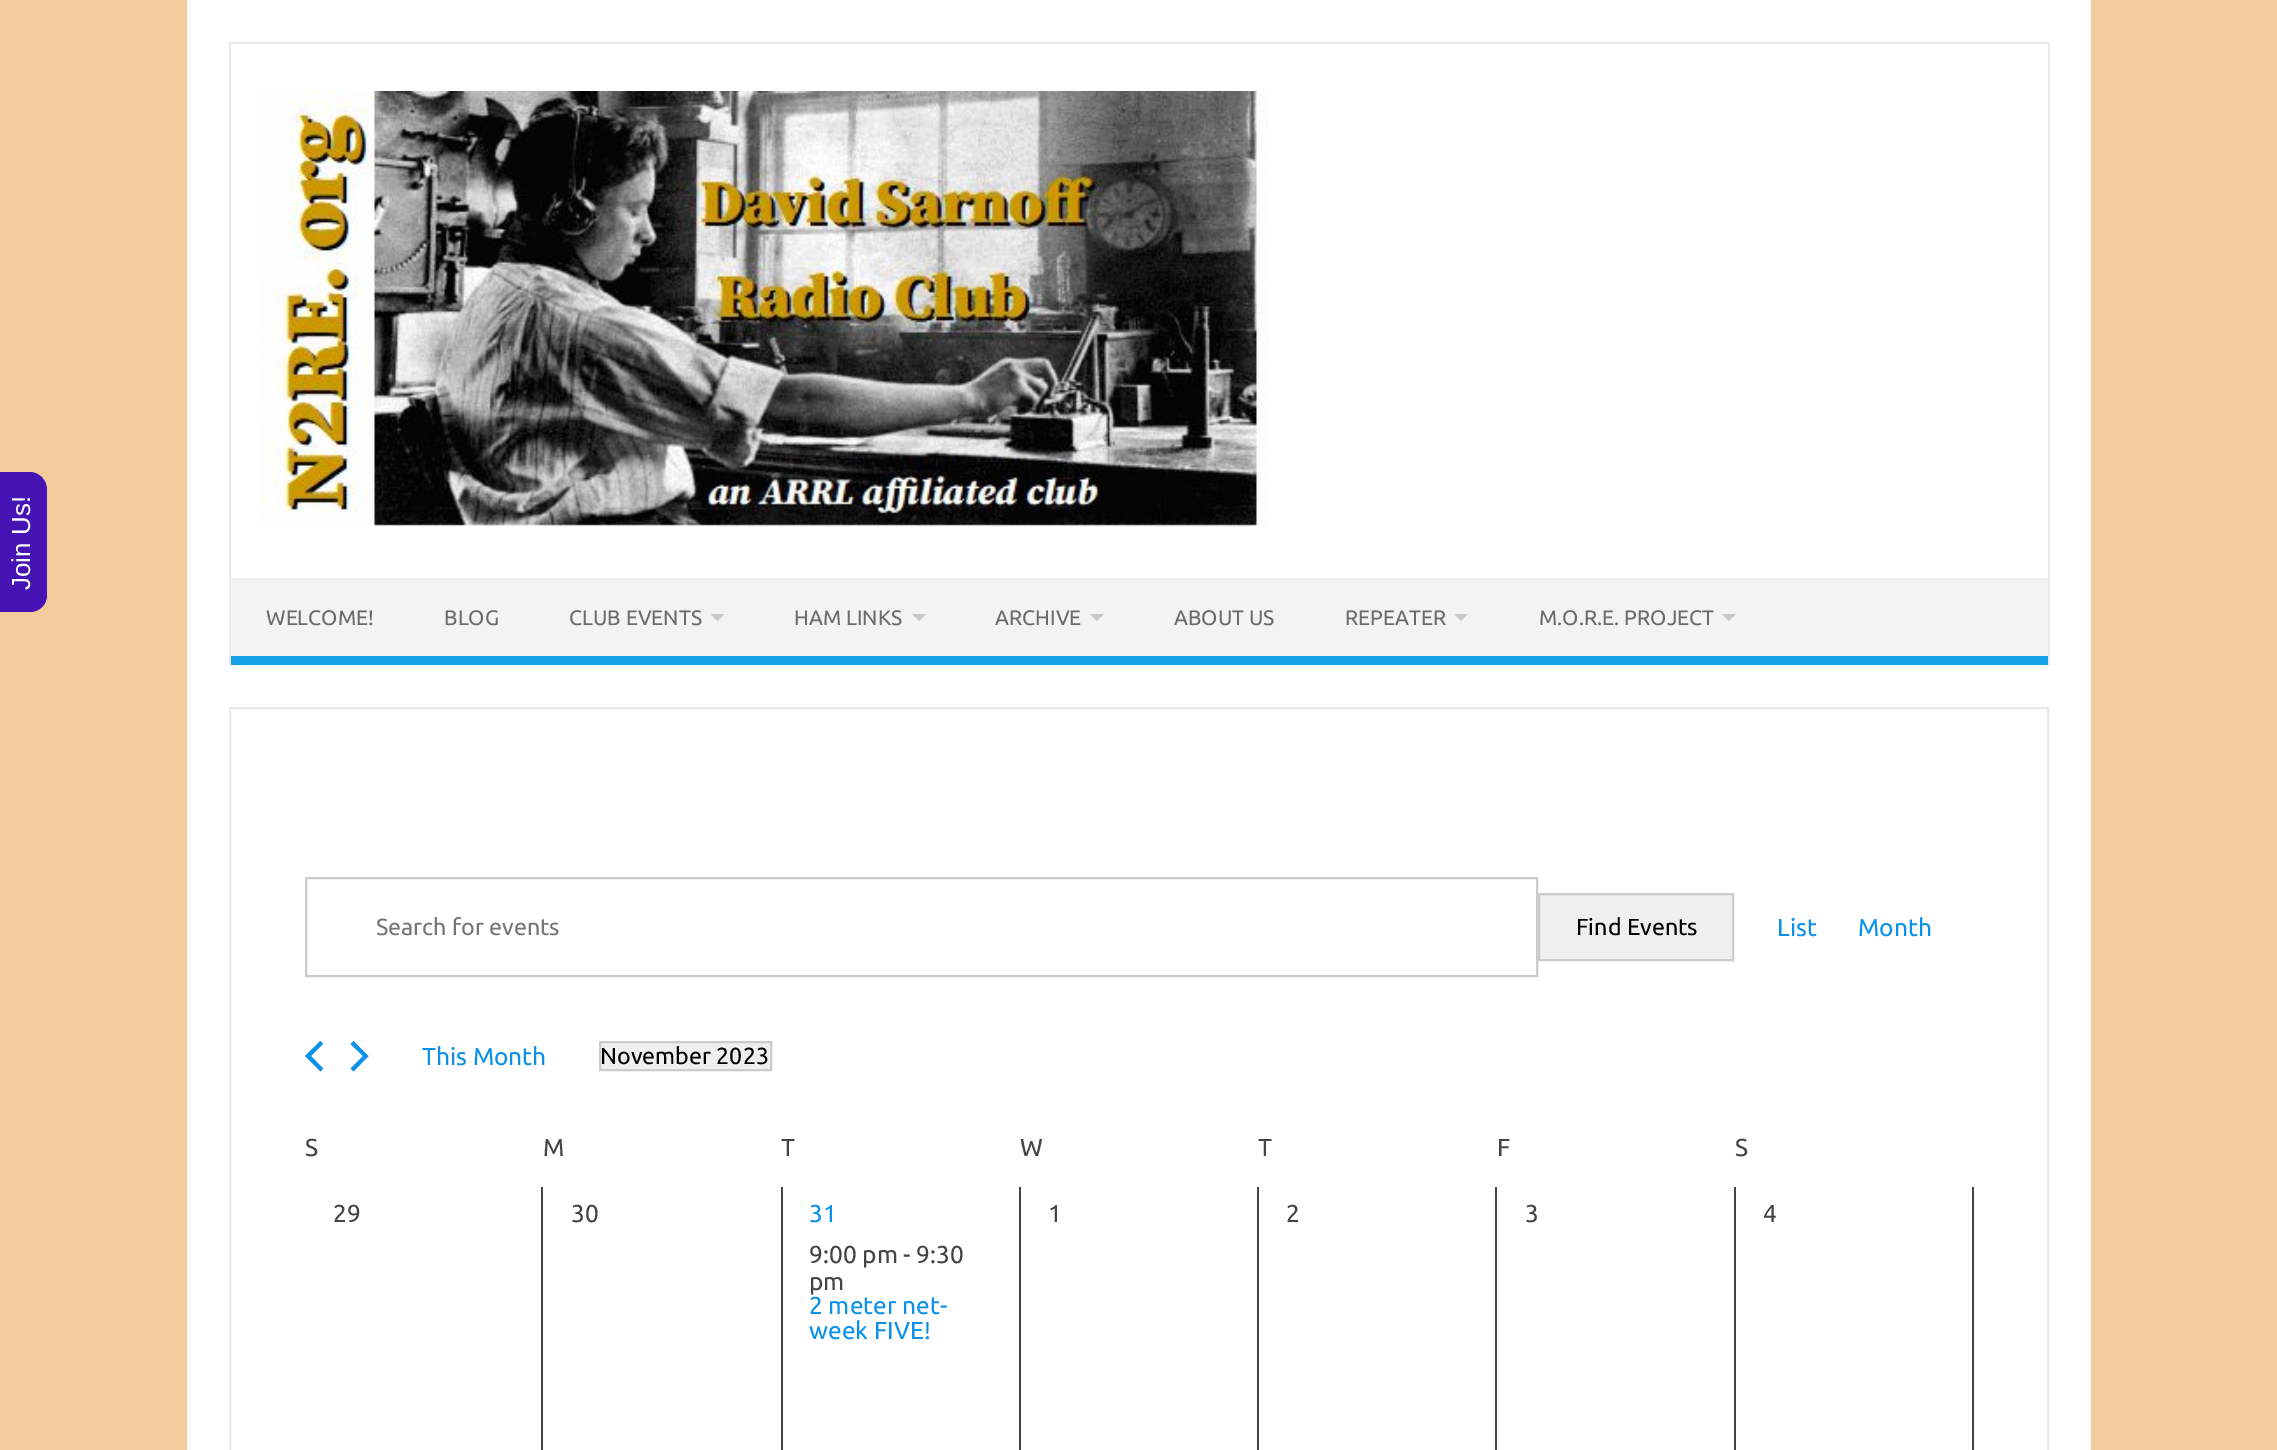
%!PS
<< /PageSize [2277 1450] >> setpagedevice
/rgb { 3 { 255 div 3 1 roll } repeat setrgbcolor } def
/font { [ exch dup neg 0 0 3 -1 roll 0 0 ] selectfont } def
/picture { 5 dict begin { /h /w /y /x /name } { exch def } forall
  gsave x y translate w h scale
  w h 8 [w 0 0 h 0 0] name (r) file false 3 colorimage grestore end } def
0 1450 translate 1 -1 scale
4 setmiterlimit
244 203 156 rgb
0 0 2277 1450 rectfill
70 19 181 rgb
-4 612 moveto -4 472 lineto 30 472 lineto 39 472 47 480 47 490 curveto 47 595 lineto 47 605 39 612 30 612 curveto closepath fill
[
  [187 0 1904 1450 255 255 255]
  [229 42 1820 2 233 233 233]
  [2048 42 2 623 233 233 233]
  [229 42 2 623 233 233 233]
] { aload pop rgb rectfill } forall
(img/1.rgb) 261 91 1008 435 picture
[
  [231 580 1817 76 243 243 243]
  [231 578 1817 2 237 237 237]
  [231 656 1817 9 22 161 231]
] { aload pop rgb rectfill } forall
201 201 201 rgb
710.5 614 moveto 724.5 614 lineto 717.5 621 lineto closepath fill
912 614 moveto 926 614 lineto 919 621 lineto closepath fill
1090 614 moveto 1104 614 lineto 1097 621 lineto closepath fill
1454 614 moveto 1468 614 lineto 1461 621 lineto closepath fill
1722 614 moveto 1736 614 lineto 1729 621 lineto closepath fill
233 233 233 rgb
2 setlinewidth
230 708 1818 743 rectstroke
204 204 204 rgb
306 878 1231 98 rectstroke
239 239 239 rgb
1539 894 moveto 1733 894 lineto 1733 960 lineto 1539 960 lineto closepath gsave fill grestore
204 204 204 rgb
stroke
11 145 234 rgb
323 1068.5 moveto 320.5 1071.5 lineto 305 1056 lineto 320.5 1041 lineto 323 1044 lineto 311 1056 lineto closepath fill
350.5 1044 moveto 353.5 1041 lineto 368.5 1056 lineto 353.5 1071.5 lineto 350.5 1068.5 lineto 363 1056 lineto closepath fill
239 239 239 rgb
600 1042 moveto 771 1042 lineto 771 1070 lineto 600 1070 lineto closepath gsave fill grestore
204 204 204 rgb
stroke
[
  [541 1187 2 263 68 68 68]
  [781 1187 2 263 68 68 68]
  [1019 1187 2 263 68 68 68]
  [1257 1187 2 263 68 68 68]
  [1495 1187 2 263 68 68 68]
  [1734 1187 2 263 68 68 68]
  [1972 1187 2 263 68 68 68]
] { aload pop rgb rectfill } forall
/LiberationSans-Regular 26 font
255 255 255 rgb
gsave 30 590 translate -90 rotate 0 0 moveto (Join Us!) show grestore
/Ubuntu-Regular 21 font
106 106 106 rgb
[
  [(WELCOME!) 266 625]
  [(BLOG) 444 625]
  [(CLUB EVENTS) 569 625]
  [(HAM LINKS) 794 625]
  [(ARCHIVE) 995 625]
  [(ABOUT US) 1174 625]
  [(REPEATER) 1345 625]
  [(M.O.R.E. PROJECT) 1539 625]
] { aload pop moveto show } forall
/Ubuntu-Regular 23.25 font
117 117 117 rgb
376 935 moveto (Search for events) show
0 0 0 rgb
1576 935 moveto (Find Events) show
/Ubuntu-Regular 24.5 font
11 145 234 rgb
[
  [(List) 1777 936]
  [(Month) 1858 936]
  [(This Month) 422 1065]
] { aload pop moveto show } forall
/Ubuntu-Regular 23.25 font
0 0 0 rgb
600 1064 moveto (November 2023) show
/Ubuntu-Regular 24.5 font
68 68 68 rgb
[
  [(S) 305 1156]
  [(M) 543 1156]
  [(T) 781 1156]
  [(W) 1020 1156]
  [(T) 1258 1156]
  [(F) 1497 1156]
  [(S) 1735 1156]
  [(29) 333 1222]
  [(30) 571 1222]
] { aload pop moveto show } forall
11 145 234 rgb
809 1222 moveto (31) show
68 68 68 rgb
809 1263 moveto (9:00 pm - 9:30) show
809 1290 moveto (pm) show
11 145 234 rgb
809 1314 moveto (2 meter net-) show
809 1339 moveto (week FIVE!) show
68 68 68 rgb
[
  [(1) 1048 1222]
  [(2) 1286 1222]
  [(3) 1525 1222]
  [(4) 1763 1222]
] { aload pop moveto show } forall
showpage
